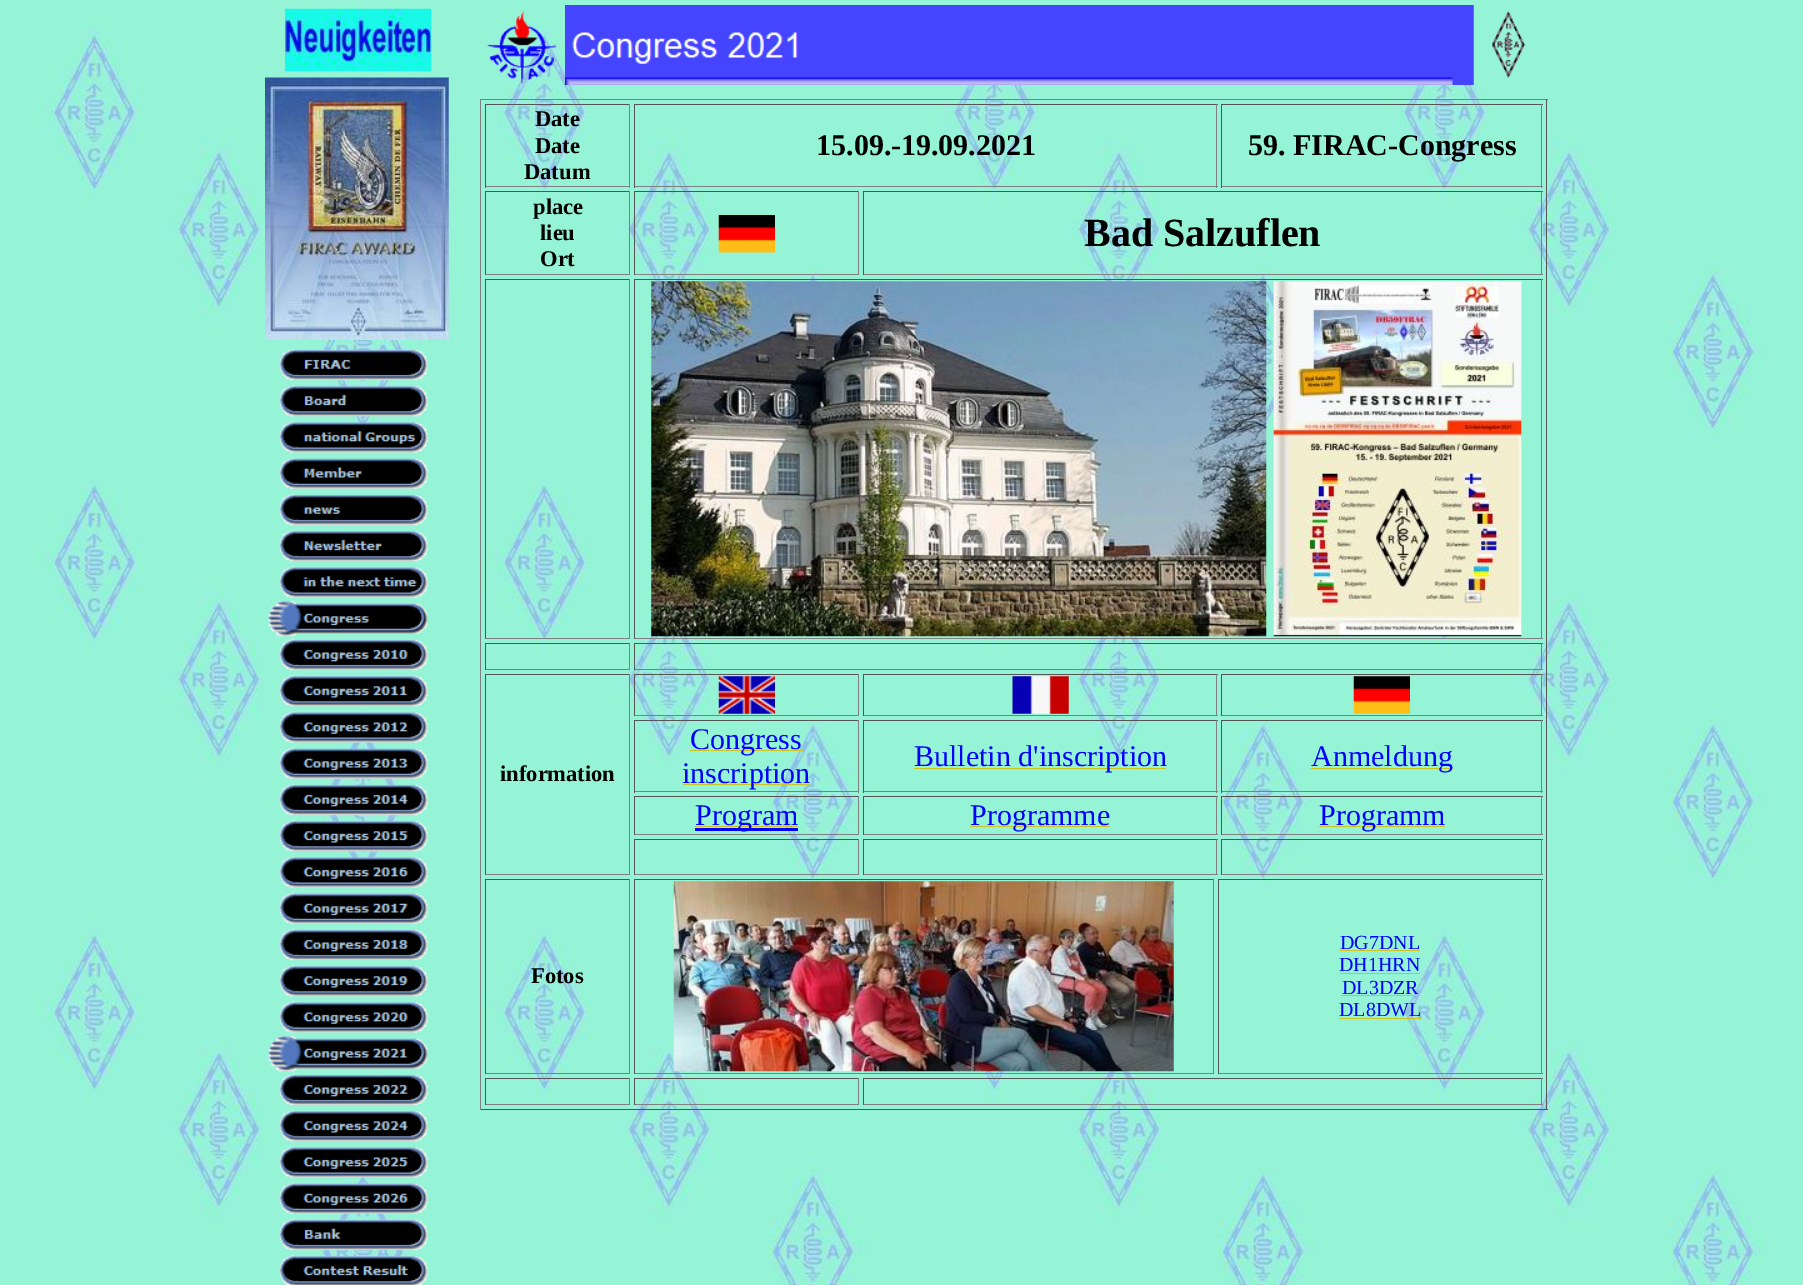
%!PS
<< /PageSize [1803 1285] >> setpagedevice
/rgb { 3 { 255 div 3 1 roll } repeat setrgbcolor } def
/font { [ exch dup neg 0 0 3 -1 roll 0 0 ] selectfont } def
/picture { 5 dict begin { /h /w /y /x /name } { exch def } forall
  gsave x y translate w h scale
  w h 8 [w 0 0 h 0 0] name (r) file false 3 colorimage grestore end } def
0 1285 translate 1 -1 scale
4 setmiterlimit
255 255 255 rgb
0 0 1803 1285 rectfill
(img/1.rgb) 0 0 1803 1285 picture
(img/2.rgb) 285 8 147 64 picture
(img/3.rgb) 265 77 184 263 picture
(img/4.rgb) 279 348 149 33 picture
(img/5.rgb) 279 384 149 33 picture
(img/6.rgb) 279 421 149 32 picture
(img/7.rgb) 279 457 149 32 picture
(img/8.rgb) 279 493 149 33 picture
(img/9.rgb) 279 529 149 33 picture
(img/10.rgb) 279 566 149 32 picture
(img/11.rgb) 268 601 160 36 picture
(img/12.rgb) 279 638 149 33 picture
(img/13.rgb) 279 674 149 33 picture
(img/14.rgb) 279 711 149 32 picture
(img/15.rgb) 279 747 149 32 picture
(img/16.rgb) 279 783 149 33 picture
(img/17.rgb) 279 819 149 33 picture
(img/18.rgb) 279 856 149 32 picture
(img/19.rgb) 279 892 149 32 picture
(img/20.rgb) 279 928 149 33 picture
(img/21.rgb) 279 964 149 33 picture
(img/22.rgb) 279 1001 149 32 picture
(img/23.rgb) 268 1036 160 36 picture
(img/24.rgb) 279 1073 149 33 picture
(img/25.rgb) 279 1109 149 33 picture
(img/26.rgb) 279 1146 149 32 picture
(img/27.rgb) 279 1182 149 32 picture
(img/28.rgb) 279 1218 149 33 picture
(img/29.rgb) 279 1254 149 31 picture
(img/30.rgb) 565 5 909 80 picture
(img/31.rgb) 487 11 70 73 picture
(img/32.rgb) 1492 11 34 67 picture
[
  [480 99 1068 1 128 128 128]
  [1546 99 1 1011 85 85 85]
  [480 1109 1068 1 85 85 85]
  [480 99 1 1011 128 128 128]
  [485 104 145 1 85 85 85]
  [629 104 1 84 128 128 128]
  [485 186 145 1 128 128 128]
  [485 104 1 84 85 85 85]
  [634 104 584 1 85 85 85]
  [1216 104 1 84 128 128 128]
  [634 186 584 1 128 128 128]
  [634 104 1 84 85 85 85]
  [1221 104 322 1 85 85 85]
  [1541 104 1 84 128 128 128]
  [1221 186 322 1 128 128 128]
  [1221 104 1 84 85 85 85]
  [485 191 145 1 85 85 85]
  [629 191 1 84 128 128 128]
  [485 274 145 1 128 128 128]
  [485 191 1 84 85 85 85]
  [634 191 225 1 85 85 85]
  [858 191 1 84 128 128 128]
  [634 274 225 1 128 128 128]
  [634 191 1 84 85 85 85]
] { aload pop rgb rectfill } forall
(img/33.rgb) 718 215 57 38 picture
[
  [863 191 680 1 85 85 85]
  [1541 191 1 84 128 128 128]
  [863 274 680 1 128 128 128]
  [863 191 1 84 85 85 85]
  [485 279 145 1 85 85 85]
  [629 279 1 360 128 128 128]
  [485 638 145 1 128 128 128]
  [485 279 1 360 85 85 85]
  [634 279 909 1 85 85 85]
  [1541 279 1 360 128 128 128]
  [634 638 909 1 128 128 128]
  [634 279 1 360 85 85 85]
] { aload pop rgb rectfill } forall
(img/34.rgb) 651 281 616 356 picture
(img/35.rgb) 1273 281 249 356 picture
[
  [485 643 145 1 85 85 85]
  [629 643 1 27 128 128 128]
  [485 669 145 1 128 128 128]
  [485 643 1 27 85 85 85]
  [634 643 909 1 85 85 85]
  [1541 643 1 27 128 128 128]
  [634 669 909 1 128 128 128]
  [634 643 1 27 85 85 85]
  [634 674 225 1 85 85 85]
  [858 674 1 42 128 128 128]
  [634 715 225 1 128 128 128]
  [634 674 1 42 85 85 85]
] { aload pop rgb rectfill } forall
(img/36.rgb) 718 676 57 38 picture
[
  [863 674 355 1 85 85 85]
  [1216 674 1 42 128 128 128]
  [863 715 355 1 128 128 128]
  [863 674 1 42 85 85 85]
] { aload pop rgb rectfill } forall
(img/37.rgb) 1012 676 57 38 picture
[
  [1221 674 322 1 85 85 85]
  [1541 674 1 42 128 128 128]
  [1221 715 322 1 128 128 128]
  [1221 674 1 42 85 85 85]
] { aload pop rgb rectfill } forall
(img/38.rgb) 1353 676 57 38 picture
[
  [485 674 145 1 85 85 85]
  [629 674 1 201 128 128 128]
  [485 874 145 1 128 128 128]
  [485 674 1 201 85 85 85]
  [634 720 225 1 85 85 85]
  [858 720 1 73 128 128 128]
  [634 791 225 1 128 128 128]
  [634 720 1 73 85 85 85]
  [690 750 113 1 205 197 29]
  [683 784 127 1 205 197 29]
  [863 720 355 1 85 85 85]
  [1216 720 1 73 128 128 128]
  [863 791 355 1 128 128 128]
  [863 720 1 73 85 85 85]
  [914 768 252 1 205 197 29]
  [1221 720 322 1 85 85 85]
  [1541 720 1 73 128 128 128]
  [1221 791 322 1 128 128 128]
  [1221 720 1 73 85 85 85]
  [1311 768 142 1 205 197 29]
  [634 796 225 1 85 85 85]
  [858 796 1 39 128 128 128]
  [634 834 225 1 128 128 128]
  [634 796 1 39 85 85 85]
  [695 828 103 3 0 0 255]
  [695 826 103 1 205 197 29]
  [863 796 355 1 85 85 85]
  [1216 796 1 39 128 128 128]
  [863 834 355 1 128 128 128]
  [863 796 1 39 85 85 85]
  [970 826 140 1 205 197 29]
  [1221 796 322 1 85 85 85]
  [1541 796 1 39 128 128 128]
  [1221 834 322 1 128 128 128]
  [1221 796 1 39 85 85 85]
  [1319 826 126 1 205 197 29]
  [634 839 225 1 85 85 85]
  [858 839 1 36 128 128 128]
  [634 874 225 1 128 128 128]
  [634 839 1 36 85 85 85]
  [863 839 355 1 85 85 85]
  [1216 839 1 36 128 128 128]
  [863 874 355 1 128 128 128]
  [863 839 1 36 85 85 85]
  [1221 839 322 1 85 85 85]
  [1541 839 1 36 128 128 128]
  [1221 874 322 1 128 128 128]
  [1221 839 1 36 85 85 85]
  [485 879 145 1 85 85 85]
  [629 879 1 195 128 128 128]
  [485 1073 145 1 128 128 128]
  [485 879 1 195 85 85 85]
  [634 879 580 1 85 85 85]
  [1213 879 1 195 128 128 128]
  [634 1073 580 1 128 128 128]
  [634 879 1 195 85 85 85]
] { aload pop rgb rectfill } forall
(img/39.rgb) 673 881 501 191 picture
[
  [1218 879 325 1 85 85 85]
  [1541 879 1 195 128 128 128]
  [1218 1073 325 1 128 128 128]
  [1218 879 1 195 85 85 85]
  [1340 950 80 1 205 197 29]
  [1340 973 80 1 205 197 29]
  [1341 995 78 1 205 197 29]
  [1339 1018 82 1 205 197 29]
  [485 1078 145 1 85 85 85]
  [629 1078 1 27 128 128 128]
  [485 1104 145 1 128 128 128]
  [485 1078 1 27 85 85 85]
  [634 1078 225 1 85 85 85]
  [858 1078 1 27 128 128 128]
  [634 1104 225 1 128 128 128]
  [634 1078 1 27 85 85 85]
  [863 1078 680 1 85 85 85]
  [1541 1078 1 27 128 128 128]
  [863 1104 680 1 128 128 128]
  [863 1078 1 27 85 85 85]
] { aload pop rgb rectfill } forall
/LiberationSerif-Bold 22.5 font
0 0 0 rgb
[
  [(Date) 535 126]
  [(Date) 535 153]
  [(Datum) 524 179]
] { aload pop moveto show } forall
/LiberationSerif-Bold 30 font
816 155 moveto (15.09.-19.09.2021) show
1248 155 moveto (59. FIRAC-Congress) show
/LiberationSerif-Bold 22.5 font
[
  [(place) 533 214]
  [(lieu) 540 240]
  [(Ort) 540 266]
] { aload pop moveto show } forall
/LiberationSerif-Bold 40 font
1084 246 moveto (Bad Salzuflen) show
/LiberationSerif-Bold 22.5 font
500 781 moveto (information) show
/LiberationSerif-Regular 30 font
0 0 255 rgb
[
  [(Congress) 690 749]
  [(inscription) 682 783]
  [(Bulletin d'inscription) 914 766]
  [(Anmeldung) 1311 766]
  [(Program) 695 825]
  [(Programme) 970 825]
  [(Programm) 1319 825]
] { aload pop moveto show } forall
/LiberationSerif-Bold 22.5 font
0 0 0 rgb
531 983 moveto (Fotos) show
/LiberationSerif-Regular 20 font
0 0 255 rgb
[
  [(DG7DNL) 1340 949]
  [(DH1HRN) 1339 971]
  [(DL3DZR) 1342 994]
  [(DL8DWL) 1339 1016]
] { aload pop moveto show } forall
showpage
